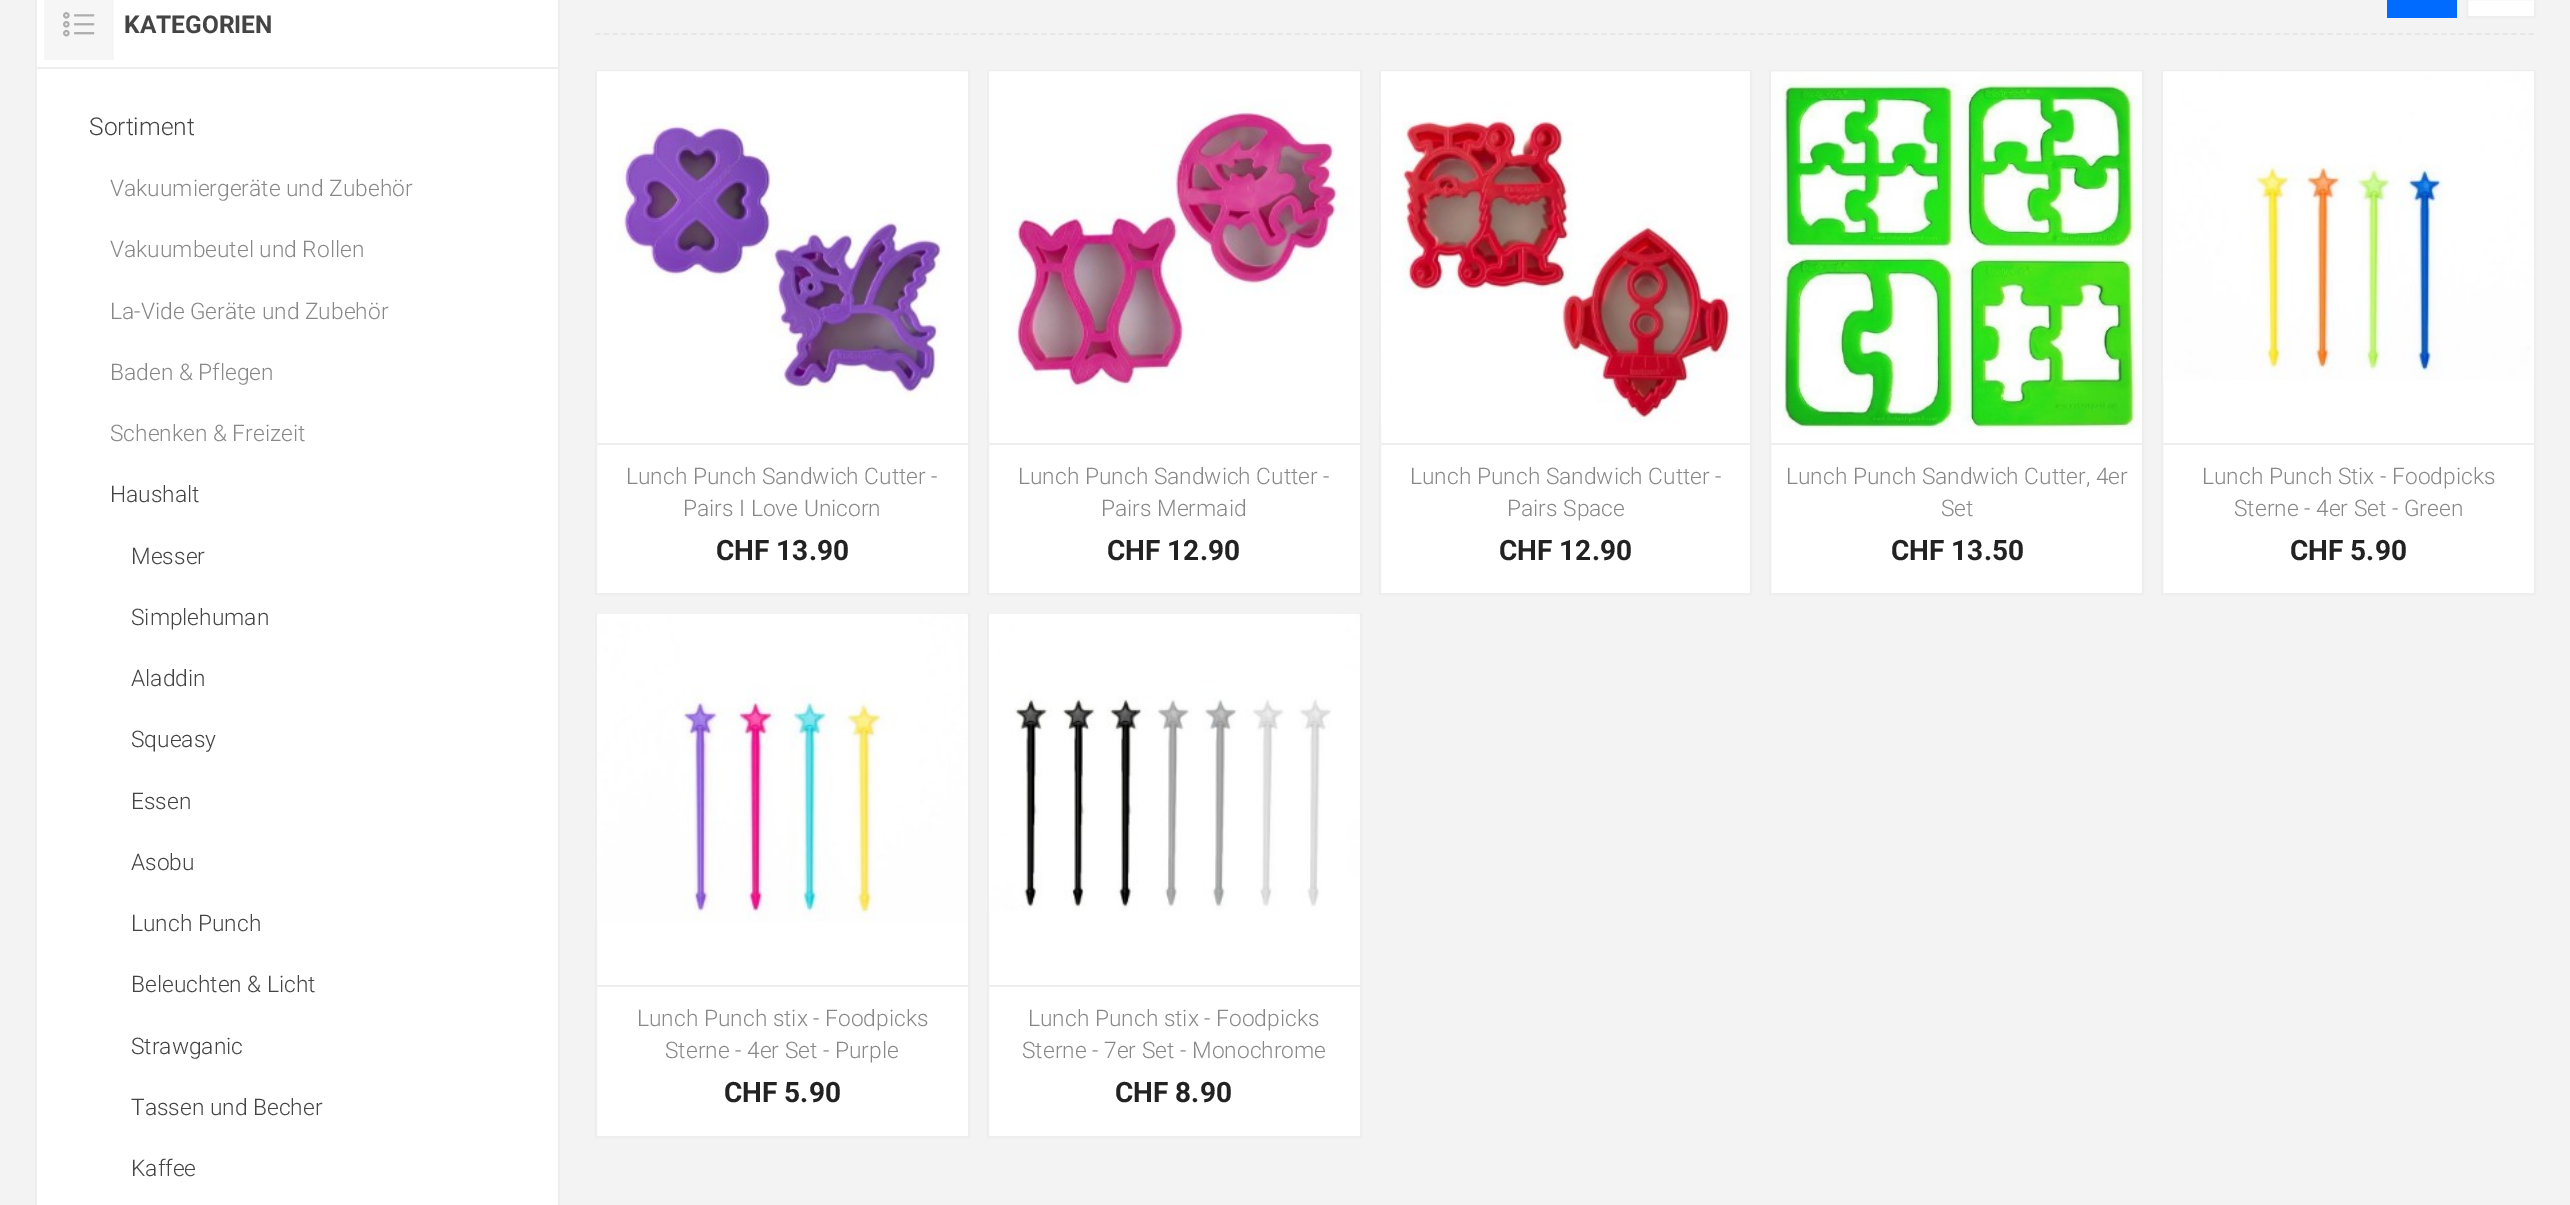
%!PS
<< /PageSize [2570 1205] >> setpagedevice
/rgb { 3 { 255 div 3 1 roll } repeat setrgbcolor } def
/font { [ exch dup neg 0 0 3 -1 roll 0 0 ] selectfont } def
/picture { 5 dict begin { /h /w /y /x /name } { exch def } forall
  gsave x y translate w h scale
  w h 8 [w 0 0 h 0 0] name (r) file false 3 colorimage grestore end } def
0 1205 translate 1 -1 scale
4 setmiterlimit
243 243 243 rgb
0 0 2570 1205 rectfill
[
  [37 0 521 1205 255 255 255]
  [558 0 2 1205 238 238 238]
  [35 0 2 1205 238 238 238]
  [37 67 521 2 238 238 238]
  [44 0 70 60 246 246 246]
] { aload pop rgb rectfill } forall
(img/1.rgb) 63 12 32 25 picture
230 230 230 rgb
1.8 setlinewidth
[5.25 3.5] 0 setdash
595 34 moveto 2536 34 lineto stroke
0 107 255 rgb
2387 0 70 18 rectfill
255 255 255 rgb
2467 -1 moveto 2535 -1 lineto 2535 17 lineto 2467 17 lineto closepath gsave fill grestore
238 238 238 rgb
2 setlinewidth
[] 0 setdash
stroke
255 255 255 rgb
596 71 moveto 969 71 lineto 969 594 lineto 596 594 lineto closepath gsave fill grestore
238 238 238 rgb
stroke
597 443 371 2 rectfill
(img/2.rgb) 597 71 371 328 picture
255 255 255 rgb
988 71 moveto 1361 71 lineto 1361 594 lineto 988 594 lineto closepath gsave fill grestore
238 238 238 rgb
stroke
989 443 371 2 rectfill
(img/3.rgb) 989 71 371 324 picture
255 255 255 rgb
1381 423 369 170 rectfill
238 238 238 rgb
1380 71 371 523 rectstroke
1381 443 369 2 rectfill
(img/4.rgb) 1381 71 369 352 picture
255 255 255 rgb
1771 434 371 159 rectfill
238 238 238 rgb
1770 71 373 523 rectstroke
1771 443 371 2 rectfill
(img/5.rgb) 1771 71 371 363 picture
255 255 255 rgb
2163 380 371 213 rectfill
238 238 238 rgb
2162 71 373 523 rectstroke
2163 443 371 2 rectfill
(img/6.rgb) 2163 71 371 309 picture
255 255 255 rgb
596 614 moveto 969 614 lineto 969 1137 lineto 596 1137 lineto closepath gsave fill grestore
238 238 238 rgb
stroke
597 985 371 2 rectfill
(img/7.rgb) 597 613 371 309 picture
255 255 255 rgb
988 614 moveto 1361 614 lineto 1361 1137 lineto 988 1137 lineto closepath gsave fill grestore
238 238 238 rgb
stroke
989 985 371 2 rectfill
(img/8.rgb) 989 613 371 298 picture
/Roboto-Bold 24.5 font
68 68 68 rgb
124 33 moveto (KATEGORIEN) show
/Roboto-Light 24.5 font
89 135 moveto (Sortiment) show
/Roboto-Light 22.75 font
136 136 136 rgb
[
  [(Vakuumiergeräte und Zubehör) 110 196]
  [(Vakuumbeutel und Rollen) 110 257]
  [(La-Vide Geräte und Zubehör) 110 319]
  [(Baden & Pflegen) 110 380]
  [(Schenken & Freizeit) 110 441]
] { aload pop moveto show } forall
68 68 68 rgb
[
  [(Haushalt) 110 502]
  [(Messer) 131 564]
  [(Simplehuman) 131 625]
  [(Aladdin) 131 686]
  [(Squeasy) 131 747]
  [(Essen) 131 809]
  [(Asobu) 131 870]
  [(Lunch Punch) 131 931]
  [(Beleuchten & Licht) 131 992]
  [(Strawganic) 131 1054]
  [(Tassen und Becher) 131 1115]
  [(Kaffee) 131 1176]
] { aload pop moveto show } forall
136 136 136 rgb
626 484 moveto (Lunch Punch Sandwich Cutter -) show
683 516 moveto (Pairs I Love Unicorn) show
/Roboto-Bold 28 font
34 34 34 rgb
716 560 moveto (CHF 13.90) show
/Roboto-Light 22.75 font
136 136 136 rgb
1018 484 moveto (Lunch Punch Sandwich Cutter -) show
1101 516 moveto (Pairs Mermaid) show
/Roboto-Bold 28 font
34 34 34 rgb
1107 560 moveto (CHF 12.90) show
/Roboto-Light 22.75 font
136 136 136 rgb
1410 484 moveto (Lunch Punch Sandwich Cutter -) show
1507 516 moveto (Pairs Space) show
/Roboto-Bold 28 font
34 34 34 rgb
1499 560 moveto (CHF 12.90) show
/Roboto-Light 22.75 font
136 136 136 rgb
1786 484 moveto (Lunch Punch Sandwich Cutter, 4er) show
1941 516 moveto (Set) show
/Roboto-Bold 28 font
34 34 34 rgb
1891 560 moveto (CHF 13.50) show
/Roboto-Light 22.75 font
136 136 136 rgb
2202 484 moveto (Lunch Punch Stix - Foodpicks) show
2234 516 moveto (Sterne - 4er Set - Green) show
/Roboto-Bold 28 font
34 34 34 rgb
2290 560 moveto (CHF 5.90) show
/Roboto-Light 22.75 font
136 136 136 rgb
637 1026 moveto (Lunch Punch stix - Foodpicks) show
665 1058 moveto (Sterne - 4er Set - Purple) show
/Roboto-Bold 28 font
34 34 34 rgb
724 1102 moveto (CHF 5.90) show
/Roboto-Light 22.75 font
136 136 136 rgb
1028 1026 moveto (Lunch Punch stix - Foodpicks) show
1022 1058 moveto (Sterne - 7er Set - Monochrome) show
/Roboto-Bold 28 font
34 34 34 rgb
1115 1102 moveto (CHF 8.90) show
showpage
